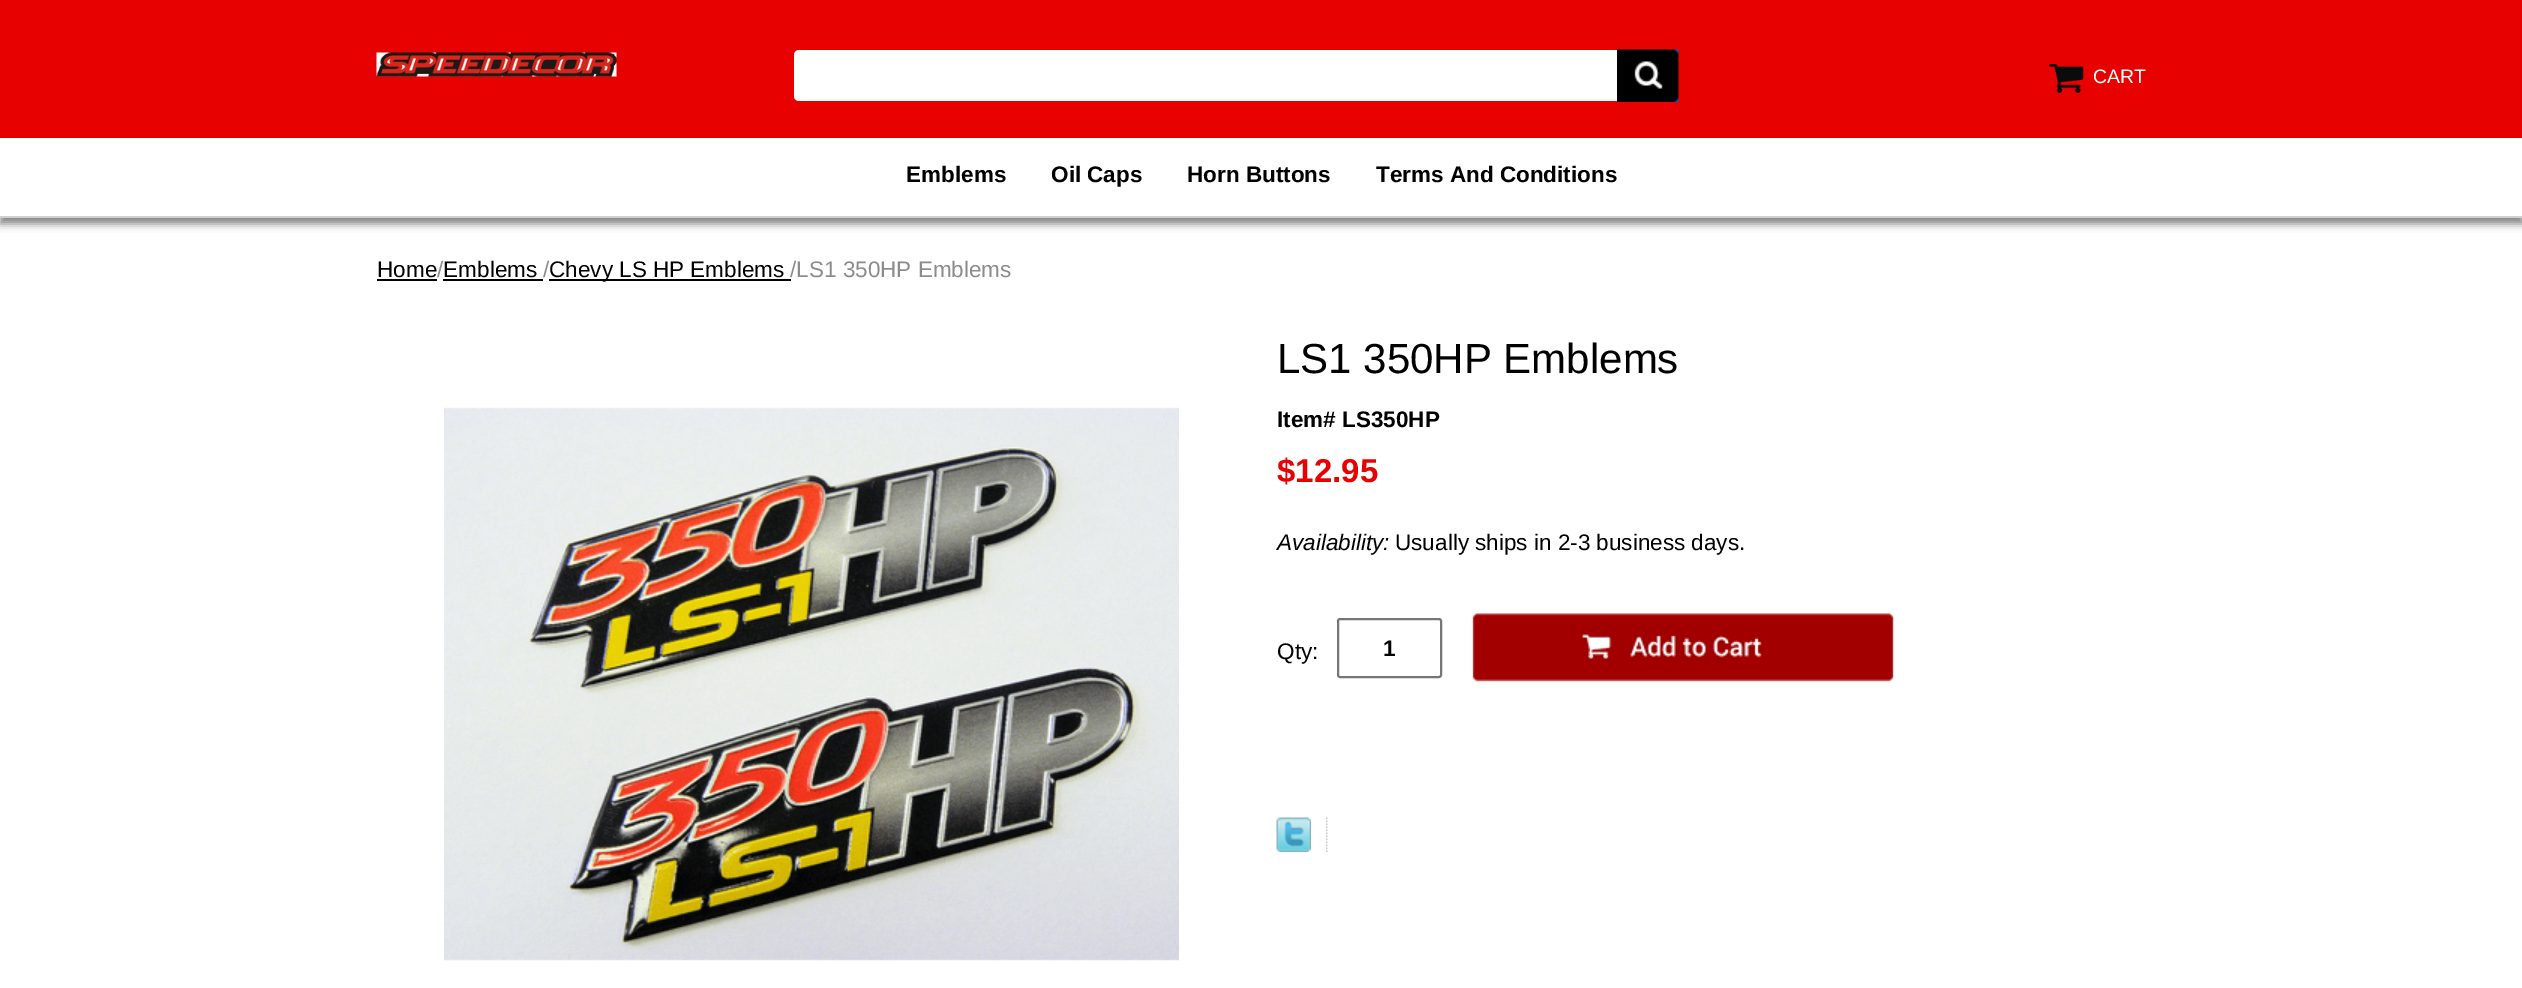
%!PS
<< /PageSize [2522 988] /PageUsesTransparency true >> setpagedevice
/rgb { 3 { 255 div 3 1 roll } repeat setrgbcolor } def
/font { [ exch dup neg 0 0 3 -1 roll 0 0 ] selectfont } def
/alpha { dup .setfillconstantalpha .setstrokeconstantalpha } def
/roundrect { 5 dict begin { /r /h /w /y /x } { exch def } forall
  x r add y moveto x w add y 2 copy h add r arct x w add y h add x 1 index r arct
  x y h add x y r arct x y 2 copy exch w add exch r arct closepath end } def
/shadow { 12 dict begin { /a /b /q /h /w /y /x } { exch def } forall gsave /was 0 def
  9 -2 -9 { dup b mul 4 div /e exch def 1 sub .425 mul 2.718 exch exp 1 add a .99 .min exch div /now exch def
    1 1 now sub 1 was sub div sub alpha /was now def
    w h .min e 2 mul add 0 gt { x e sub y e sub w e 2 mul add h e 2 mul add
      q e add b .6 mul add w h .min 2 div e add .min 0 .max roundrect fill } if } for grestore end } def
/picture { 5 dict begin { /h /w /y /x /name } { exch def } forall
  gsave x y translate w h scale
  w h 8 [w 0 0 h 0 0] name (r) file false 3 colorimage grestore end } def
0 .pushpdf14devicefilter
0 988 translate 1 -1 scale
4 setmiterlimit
255 255 255 rgb
0 0 2522 988 rectfill
232 1 1 rgb
0 0 2522 138 rectfill
(img/1.rgb) 376 52 241 25 picture
255 255 255 rgb
794 50 885 51 5 roundrect fill
232 1 1 rgb
1678 50 1 52 rectfill
(img/2.rgb) 1617 49 62 53 picture
(img/3.rgb) 2049 64 35 29 picture
0 0 0 rgb
0 144 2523 80 0 4 0.48 shadow
[
  [0 138 2522 78 255 255 255]
  [0 216 2522 2 208 208 208]
  [377 279 60 2 0 0 0]
  [549 279 242 2 0 0 0]
  [443 279 100 2 0 0 0]
] { aload pop rgb rectfill } forall
(img/4.rgb) 444 407 735 554 picture
118 118 118 rgb
2 setlinewidth
1338 619 103 58 2 roundrect stroke
(img/5.rgb) 1472 613 422 69 picture
(img/6.rgb) 1276 817 35 35 picture
(img/7.rgb) 1326 817 2 35 picture
/LiberationSans-Regular 19.5 font
255 255 255 rgb
2093 83 moveto (CART) show
/LiberationSans-Bold 22.5 font
0 0 0 rgb
[
  [(Emblems) 906 182]
  [(Oil Caps) 1051 182]
  [(Horn Buttons) 1187 182]
  [(Terms And Conditions) 1376 182]
] { aload pop moveto show } forall
/LiberationSans-Regular 22.5 font
377 277 moveto (Home Emblems) show
140 140 140 rgb
437 277 moveto (/) show
543 277 moveto (/) show
0 0 0 rgb
549 277 moveto (Chevy LS HP Emblems) show
140 140 140 rgb
790 277 moveto (/LS1 350HP Emblems) show
/LiberationSans-Regular 42 font
0 0 0 rgb
1277 373 moveto (LS1 350HP Emblems) show
/LiberationSans-Bold 22.5 font
1277 427 moveto (Item# LS350HP) show
/LiberationSans-Bold 33 font
232 1 1 rgb
1277 482 moveto ($12.95) show
/LiberationSans-Italic 22.5 font
0 0 0 rgb
1277 550 moveto (Availability:) show
/LiberationSans-Regular 22.5 font
1395 550 moveto (Usually ships in 2-3 business days.) show
1277 659 moveto (Qty:) show
/LiberationSans-Bold 22.5 font
1383 656 moveto (1) show
.poppdf14devicefilter showpage
